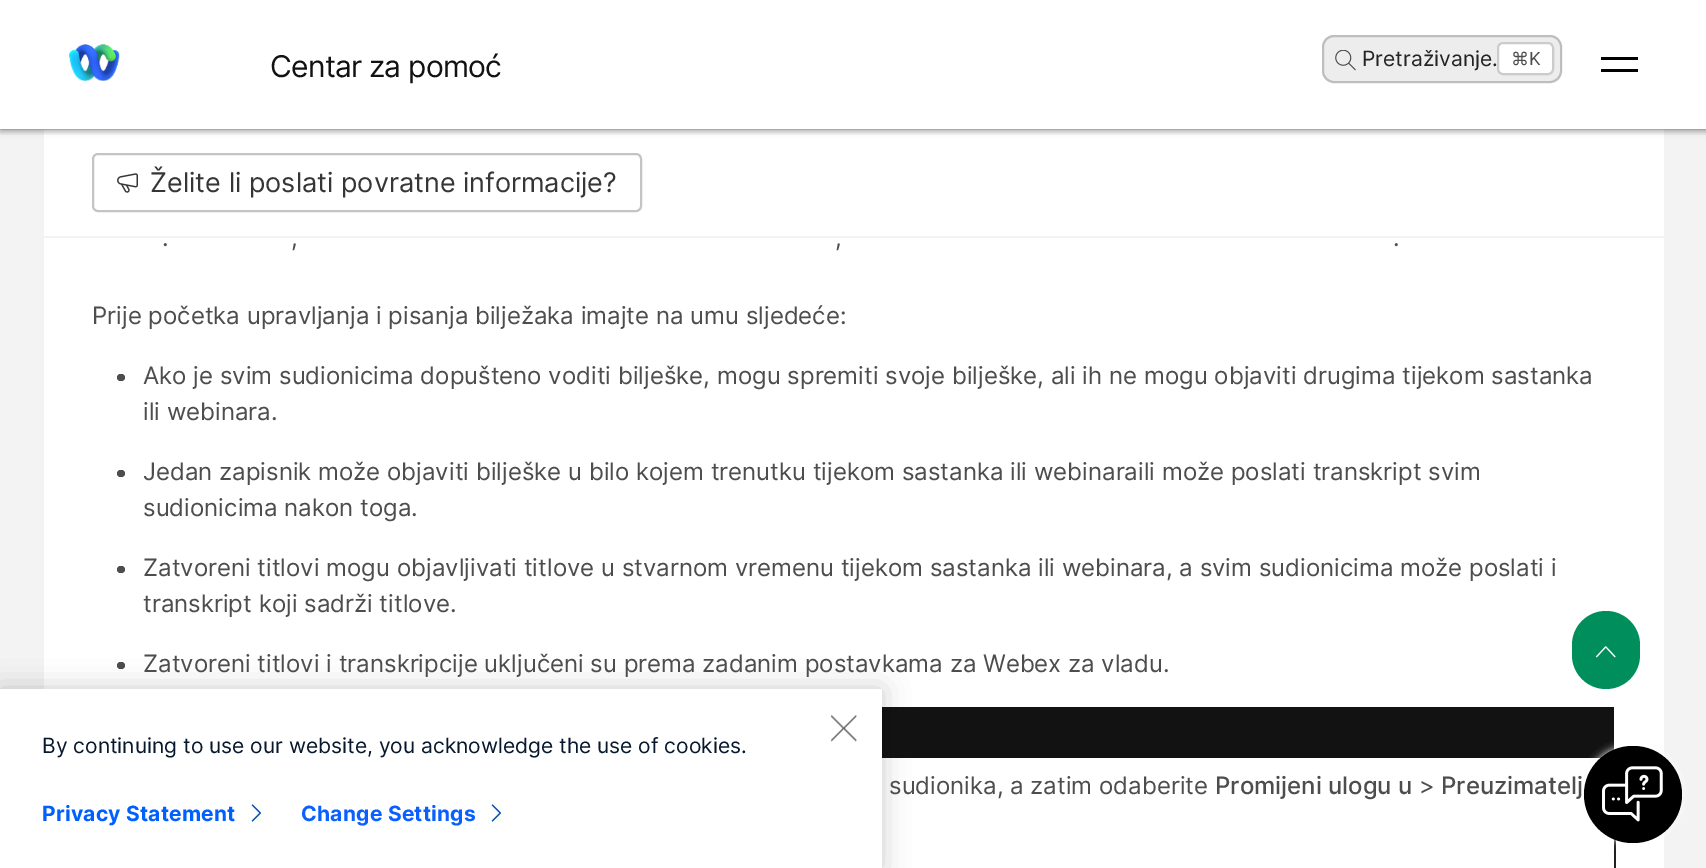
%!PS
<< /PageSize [1706 868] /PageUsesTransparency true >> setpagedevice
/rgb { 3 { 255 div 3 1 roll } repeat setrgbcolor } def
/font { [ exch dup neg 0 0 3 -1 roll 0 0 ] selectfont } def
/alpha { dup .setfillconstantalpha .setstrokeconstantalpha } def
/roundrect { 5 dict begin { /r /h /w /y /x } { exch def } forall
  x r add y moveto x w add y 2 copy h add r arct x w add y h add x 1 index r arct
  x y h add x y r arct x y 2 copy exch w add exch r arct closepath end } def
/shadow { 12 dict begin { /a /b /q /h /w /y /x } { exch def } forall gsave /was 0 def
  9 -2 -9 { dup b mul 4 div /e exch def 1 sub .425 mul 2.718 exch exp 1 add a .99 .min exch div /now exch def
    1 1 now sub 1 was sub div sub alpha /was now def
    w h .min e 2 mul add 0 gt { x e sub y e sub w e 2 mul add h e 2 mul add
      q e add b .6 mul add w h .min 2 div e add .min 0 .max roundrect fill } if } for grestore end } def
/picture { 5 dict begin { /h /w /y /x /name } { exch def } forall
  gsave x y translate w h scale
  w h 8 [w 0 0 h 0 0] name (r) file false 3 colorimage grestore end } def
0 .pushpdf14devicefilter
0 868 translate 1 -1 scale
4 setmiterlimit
243 243 243 rgb
0 0 1706 868 rectfill
255 255 255 rgb
44 129 1620 107 rectfill
0 0 0 rgb
0 0 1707 129 0 1 0.18 shadow
0 3 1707 129 0 3 0.16 shadow
255 255 255 rgb
0 0 1706 129 rectfill
gsave
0 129 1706 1 rectclip
0 0 0 rgb
0 0 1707 129 0 1 0.18 shadow
grestore
gsave
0 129 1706 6 rectclip
0 0 0 rgb
0 3 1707 129 0 3 0.16 shadow
grestore
(img/1.rgb) 69 44 51 37 picture
237 237 237 rgb
1322 35 240 48 12 roundrect fill
0.2 alpha
0 0 0 rgb
2 setlinewidth
1323 36 238 46 11 roundrect stroke
1 alpha
(img/2.rgb) 1335 50 21 21 picture
255 255 255 rgb
1497 42 57 33 6 roundrect fill
0.2 alpha
0 0 0 rgb
1498 43 55 31 5 roundrect stroke
1 alpha
[
  [1601 57 37 3 0 0 0]
  [1601 69 37 3 0 0 0]
  [44 238 1620 630 255 255 255]
] { aload pop rgb rectfill } forall
196 196 196 rgb
93 154 548 57 5 roundrect stroke
(img/3.rgb) 117 173 21 20 picture
77 77 77 rgb
117 374 8 7 3.5 roundrect fill
117 470 8 7 3.5 roundrect fill
117 566 8 7 3.5 roundrect fill
117 662 8 7 3.5 roundrect fill
18 18 18 rgb
342 707 1274 52 3 roundrect fill
[
  [1614 705 2 45 255 255 255]
  [882 758 719 1 255 255 255]
  [1614 839 2 29 106 107 108]
] { aload pop rgb rectfill } forall
0.7 alpha
[
  [1614 839 2 29 0 0 0]
] { aload pop rgb rectfill } forall
1 alpha
0 143 92 rgb
1572 611 68 78 34 roundrect fill
(img/4.rgb) 1595 646 21 12 picture
255 255 255 rgb
1584 746 98 97 48.5 4 1 shadow
0 0 0 rgb
1584 746 98 97 48.5 roundrect fill
(img/5.rgb) 1602 766 61 56 picture
0 689 882 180 0 13.5 0.2 shadow
255 255 255 rgb
0 689 882 179 rectfill
(img/6.rgb) 830 714 27 28 picture
(img/7.rgb) 251 804 10 18 picture
(img/7.rgb) 491 804 10 18 picture
/Inter-Regular 30 font
18 18 18 rgb
270 77 moveto -0.75 0 (Centar za pomoć) ashow
/Inter-Regular 21 font
36 36 36 rgb
1362 66 moveto (Pretraživanje.) show
/Inter-Regular 18 font
77 77 77 rgb
1511 65 moveto (⌘K) show
/Inter-Regular 27 font
54 54 54 rgb
150 192 moveto (Želite li poslati povratne informacije?) show
/Inter-Regular 24 font
77 77 77 rgb
[
  [(.) 162 246]
  [(,) 291 246]
  [(,) 835 246]
  [(.) 1393 246]
  [(Prije početka upravljanja i pisanja bilježaka imajte na umu sljedeće:) 92 324]
  [(Ako je svim sudionicima dopušteno voditi bilješke, mogu spremiti svoje bilješke, ali ih ne mogu objaviti drugima tijekom sastanka) 143 384]
  [(ili webinara.) 143 420]
  [(Jedan zapisnik može objaviti bilješke u bilo kojem trenutku tijekom sastanka ili webinaraili može poslati transkript svim) 143 480]
  [(sudionicima nakon toga.) 143 516]
  [(Zatvoreni titlovi mogu objavljivati titlove u stvarnom vremenu tijekom sastanka ili webinara, a svim sudionicima može poslati i) 143 576]
  [(transkript koji sadrži titlove.) 143 612]
  [(Zatvoreni titlovi i transkripcije uključeni su prema zadanim postavkama za Webex za vladu.) 143 672]
  [(sudionika, a zatim odaberite) 889 794]
] { aload pop moveto show } forall
/Inter-Medium 24 font
1215 794 moveto (Promijeni ulogu u) show
/Inter-Regular 24 font
1419 794 moveto (>) show
/Inter-Medium 24 font
1441 794 moveto (Preuzimatelj) show
/Inter-Regular 21 font
7 24 45 rgb
42 753 moveto (By continuing to use our website, you acknowledge the use of cookies.) show
/Inter-Bold 21 font
0 96 255 rgb
42 821 moveto 0.25 0 (Privacy Statement) ashow
10 96 255 rgb
301 821 moveto 0.25 0 (Change Settings) ashow
.poppdf14devicefilter showpage
